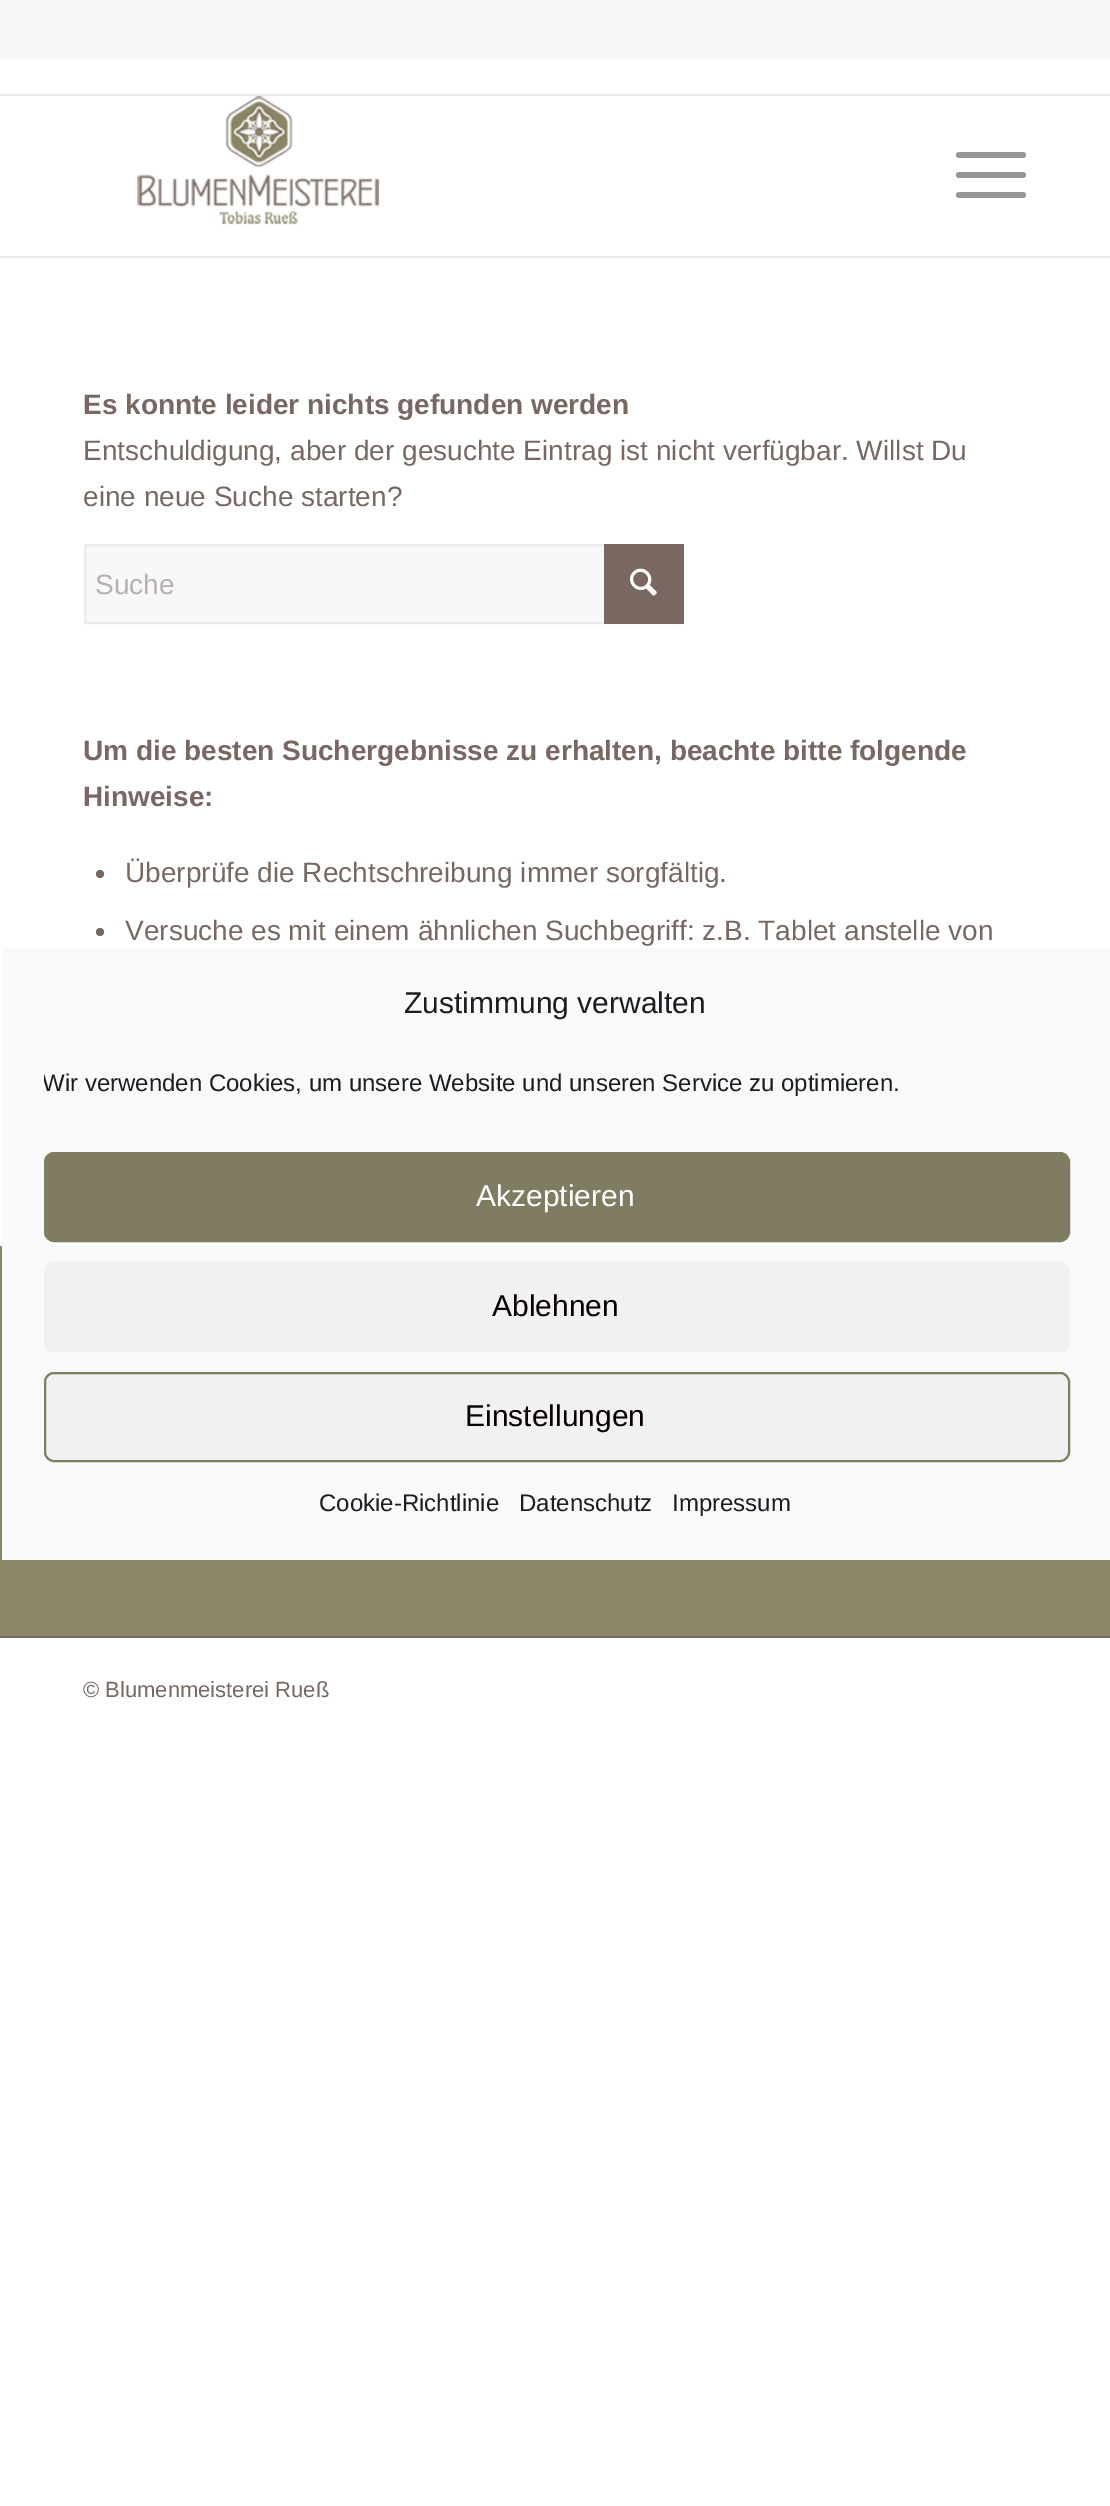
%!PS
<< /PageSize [1110 2506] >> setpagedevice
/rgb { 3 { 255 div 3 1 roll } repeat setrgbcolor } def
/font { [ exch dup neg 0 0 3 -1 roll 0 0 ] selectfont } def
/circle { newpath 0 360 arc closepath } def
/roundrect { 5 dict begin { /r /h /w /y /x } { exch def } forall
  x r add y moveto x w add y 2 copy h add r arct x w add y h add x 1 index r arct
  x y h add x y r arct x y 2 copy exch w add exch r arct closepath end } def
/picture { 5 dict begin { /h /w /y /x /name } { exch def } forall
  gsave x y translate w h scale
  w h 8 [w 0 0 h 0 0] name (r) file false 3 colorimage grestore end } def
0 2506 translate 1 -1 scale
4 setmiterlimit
255 255 255 rgb
0 0 1110 2506 rectfill
[
  [0 0 1110 60 248 248 248]
  [0 94 1110 2 235 235 235]
  [0 256 1110 2 235 235 235]
] { aload pop rgb rectfill } forall
(img/1.rgb) 137 96 243 129 picture
150 150 150 rgb
956 172 70 6 3 roundrect fill
956 152 70 6 3 roundrect fill
956 192 70 6 3 roundrect fill
248 248 248 rgb
86 546 518 76 rectfill
235 235 235 rgb
2 setlinewidth
85 545 598 78 rectstroke
120 104 97 rgb
604 544 80 80 rectfill
(img/2.rgb) 630 568 27 28 picture
100 874 4 circle fill
100 932 4 circle fill
[
  [0 1246 1110 390 139 134 104]
  [0 1636 1110 2 120 104 97]
  [2 948 1108 612 249 249 249]
] { aload pop rgb rectfill } forall
127 124 97 rgb
45 1153 1024 88 9 roundrect gsave fill grestore
stroke
241 241 241 rgb
44 1262 1026 90 10 roundrect fill
45 1373 1024 88 9 roundrect gsave fill grestore
127 124 97 rgb
stroke
/LiberationSans-Bold 28 font
120 104 97 rgb
83 414 moveto (Es konnte leider nichts gefunden werden) show
/LiberationSans-Regular 28 font
83 460 moveto (Entschuldigung, aber der gesuchte Eintrag ist nicht verfügbar. Willst Du) show
83 506 moveto (eine neue Suche starten?) show
184 176 173 rgb
95 594 moveto (Suche) show
/LiberationSans-Bold 28 font
120 104 97 rgb
83 760 moveto (Um die besten Suchergebnisse zu erhalten, beachte bitte folgende) show
83 806 moveto (Hinweise:) show
/LiberationSans-Regular 28 font
125 882 moveto (Überprüfe die Rechtschreibung immer sorgfältig.) show
125 940 moveto (Versuche es mit einem ähnlichen Suchbegriff: z.B. Tablet anstelle von) show
/LiberationSans-Regular 22 font
83 1697 moveto (© Blumenmeisterei Rueß) show
/LiberationSans-Regular 30 font
25 30 35 rgb
404 1013 moveto (Zustimmung verwalten) show
gsave
44 1066 1026 46 rectclip
/LiberationSans-Regular 24 font
42 1091 moveto (Wir verwenden Cookies, um unsere Website und unseren Service zu optimieren.) show
grestore
255 255 255 rgb
476 1206 moveto (Akzeptieren) show
10 2 2 rgb
492 1316 moveto (Ablehnen) show
465 1426 moveto (Einstellungen) show
/LiberationSans-Regular 24 font
25 30 35 rgb
[
  [(Cookie-Richtlinie) 319 1511]
  [(Datenschutz) 519 1511]
  [(Impressum) 672 1511]
] { aload pop moveto show } forall
showpage
